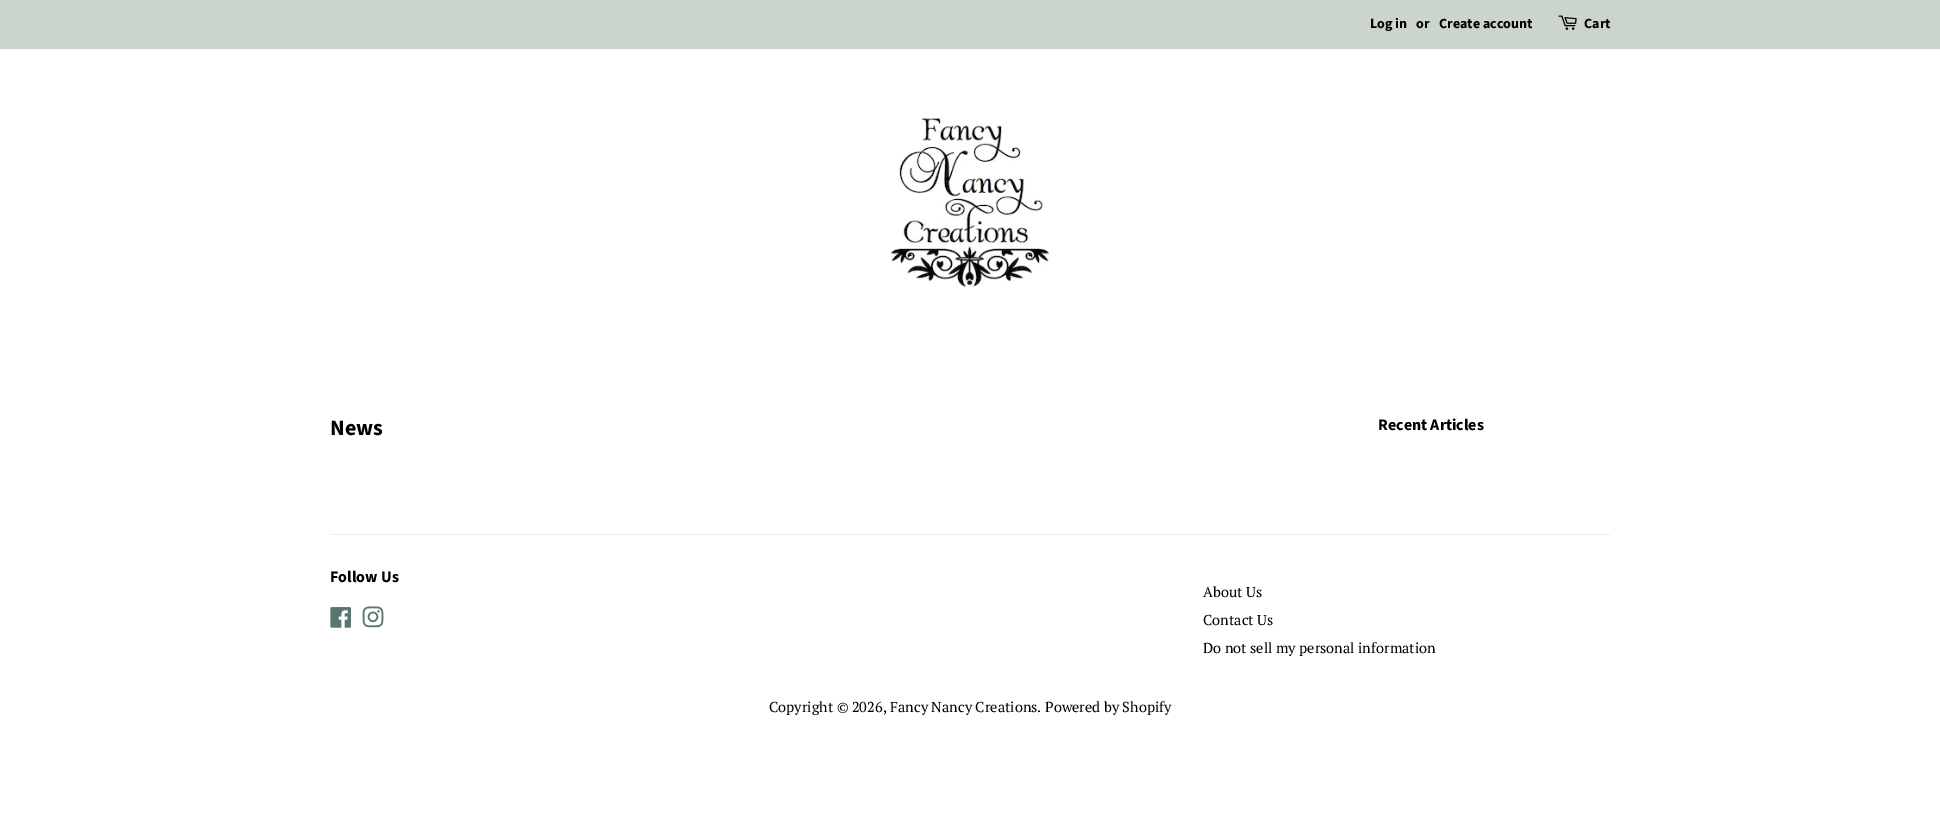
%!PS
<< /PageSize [1940 832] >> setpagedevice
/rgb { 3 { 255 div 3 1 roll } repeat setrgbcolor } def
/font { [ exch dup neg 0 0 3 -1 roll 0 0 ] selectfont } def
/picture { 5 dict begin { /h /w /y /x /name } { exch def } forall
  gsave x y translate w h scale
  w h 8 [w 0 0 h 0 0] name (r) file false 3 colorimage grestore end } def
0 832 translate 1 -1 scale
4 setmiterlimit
255 255 255 rgb
0 0 1940 832 rectfill
203 213 204 rgb
0 0 1940 49 rectfill
(img/1.rgb) 1558 15 19 15 picture
(img/2.rgb) 890 117 160 170 picture
235 235 235 rgb
330 534 1280 1 rectfill
(img/3.rgb) 330 607 21 21 picture
(img/4.rgb) 362 606 22 22 picture
/SourceSansPro-Bold 14 font
0 0 0 rgb
[
  [(Log in) 1370 28]
  [(or) 1416 28]
  [(Create account) 1439 28]
  [(Cart) 1584 28]
] { aload pop moveto show } forall
/SourceSansPro-Bold 22 font
330 435 moveto (News) show
/SourceSansPro-Bold 16 font
1378 430 moveto (Recent Articles) show
330 582 moveto (Follow Us) show
/PTSerif-Regular 14.45 font
[
  [(About Us) 1203 597]
  [(Contact Us) 1203 625]
  [(Do not sell my personal information) 1203 653]
  [(Copyright © 2026, Fancy Nancy Creations. Powered by Shopify) 769 712]
] { aload pop moveto show } forall
showpage
